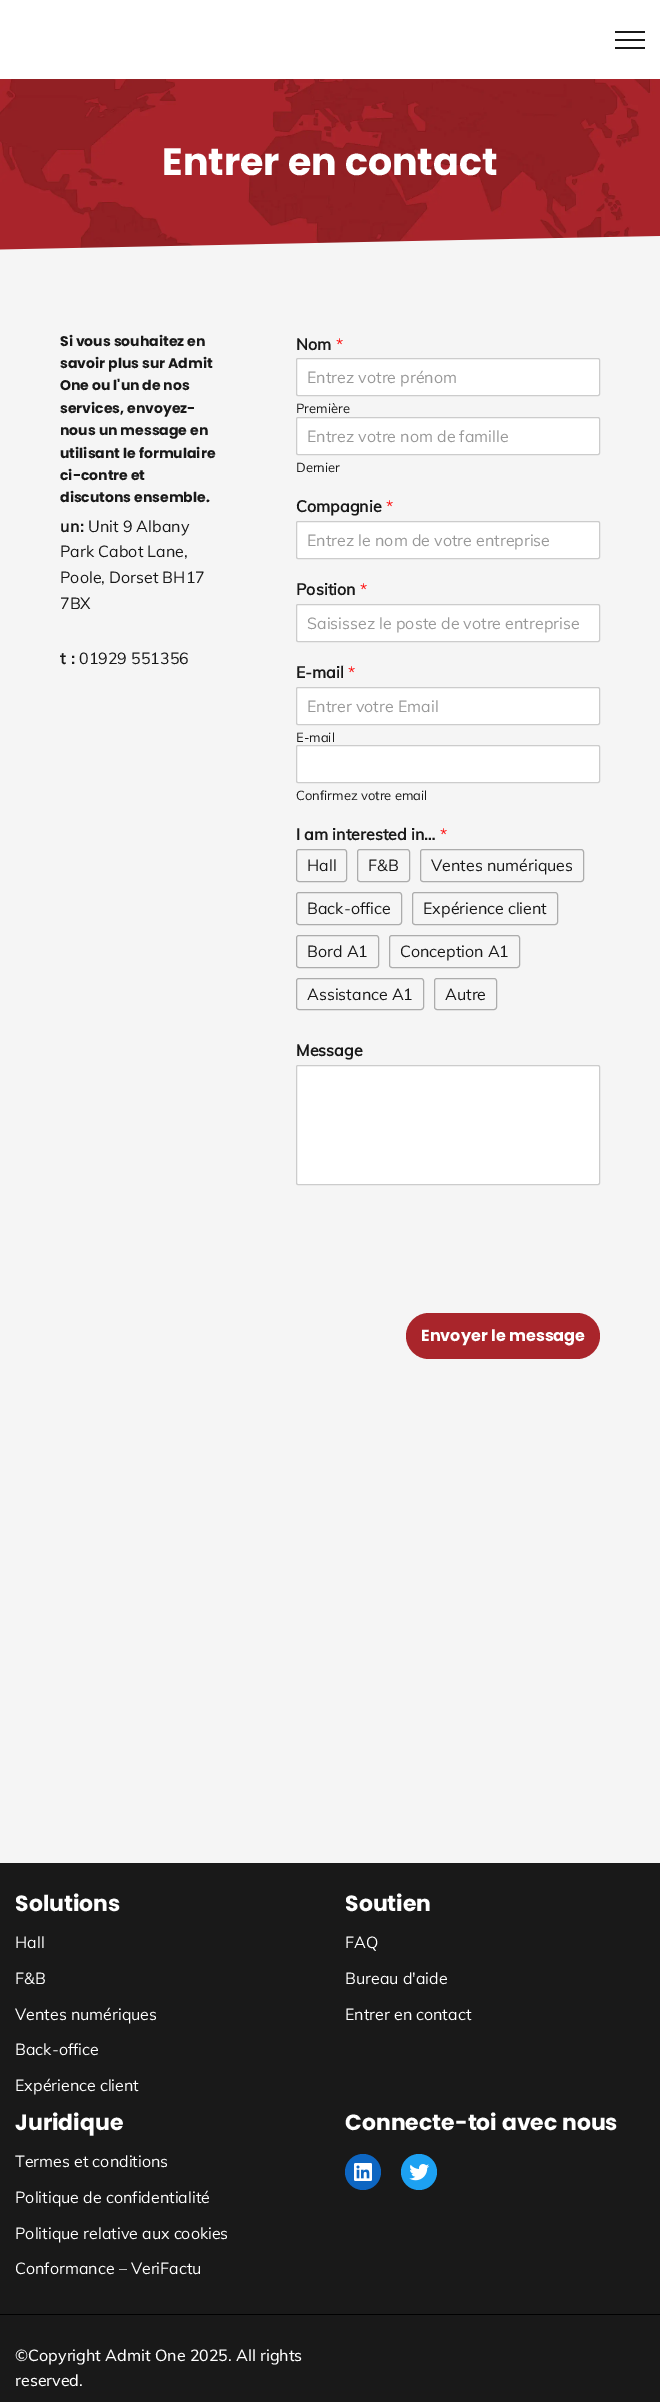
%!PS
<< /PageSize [660 2402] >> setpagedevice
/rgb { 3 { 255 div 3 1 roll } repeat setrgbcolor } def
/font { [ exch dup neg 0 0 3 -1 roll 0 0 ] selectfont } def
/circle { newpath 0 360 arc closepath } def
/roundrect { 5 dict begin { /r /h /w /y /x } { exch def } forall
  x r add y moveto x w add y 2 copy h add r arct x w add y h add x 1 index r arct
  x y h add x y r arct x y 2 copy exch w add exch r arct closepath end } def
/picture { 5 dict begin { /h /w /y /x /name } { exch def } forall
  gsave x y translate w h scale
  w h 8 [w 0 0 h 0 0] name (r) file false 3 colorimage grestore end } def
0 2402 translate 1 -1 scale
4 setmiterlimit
245 245 245 rgb
0 0 660 2402 rectfill
[
  [0 0 660 79 255 255 255]
  [615 31 30 2 25 25 25]
  [615 39 30 2 25 25 25]
  [615 47 30 2 25 25 25]
] { aload pop rgb rectfill } forall
(img/1.rgb) 0 79 660 171 picture
255 255 255 rgb
296.5 358.5 303 37 1.5 roundrect gsave fill grestore
204 204 204 rgb
stroke
255 255 255 rgb
296.5 417.5 303 37 1.5 roundrect gsave fill grestore
204 204 204 rgb
stroke
255 255 255 rgb
296.5 521.5 303 37 1.5 roundrect gsave fill grestore
204 204 204 rgb
stroke
255 255 255 rgb
296.5 604.5 303 37 1.5 roundrect gsave fill grestore
204 204 204 rgb
stroke
255 255 255 rgb
296.5 687.5 303 37 1.5 roundrect gsave fill grestore
204 204 204 rgb
stroke
255 255 255 rgb
296.5 745.5 303 37 1.5 roundrect gsave fill grestore
204 204 204 rgb
stroke
172 172 172 rgb
296.5 849.5 50 32 2.5 roundrect stroke
357.5 849.5 52 32 2.5 roundrect stroke
420.5 849.5 163 32 2.5 roundrect stroke
296.5 892.5 105 32 2.5 roundrect stroke
412.5 892.5 145 32 2.5 roundrect stroke
296.5 935.5 82 32 2.5 roundrect stroke
389.5 935.5 130 32 2.5 roundrect stroke
296.5 978.5 127 31 2.5 roundrect stroke
434.5 978.5 62 31 2.5 roundrect stroke
255 255 255 rgb
296.5 1065.5 303 119 1.5 roundrect gsave fill grestore
204 204 204 rgb
stroke
169 37 43 rgb
406 1313 194 46 23 roundrect fill
25 25 25 rgb
0 1863 660 451 rectfill
13 102 194 rgb
363 2172 18 circle fill
(img/2.rgb) 354 2163 18 18 picture
29 161 242 rgb
419 2172 18 circle fill
(img/3.rgb) 409 2164 20 17 picture
25 25 25 rgb
0 2315 660 87 rectfill
0 0 0 rgb
0 2314 660 1 rectfill
/Poppins-Bold 38 font
255 255 255 rgb
162 175 moveto (Entrer en contact) show
/Poppins-Bold 14 font
25 25 25 rgb
[
  [(Si vous souhaitez en) 60 346]
  [(savoir plus sur Admit) 60 368]
  [(One ou l'un de nos) 60 390]
  [(services, envoyez-) 60 413]
  [(nous un message en) 60 435]
  [(utilisant le formulaire) 60 458]
  [(ci-contre et) 60 480]
  [(discutons ensemble.) 60 502]
] { aload pop moveto show } forall
/Muli-Bold 16 font
60 532 moveto 0.5 0 (un:) ashow
/Muli-Regular 16 font
[
  [(Unit 9 Albany) 88 532]
  [(Park Cabot Lane,) 60 557]
  [(Poole, Dorset BH17) 60 583]
  [(7BX) 60 609]
] { aload pop moveto show } forall
/Muli-Bold 16 font
60 664 moveto 0.5 0 (t :) ashow
/Muli-Regular 16 font
79 664 moveto (01929 551356) show
/Muli-Bold 16 font
296 350 moveto (Nom) show
/Muli-Regular 16 font
255 0 0 rgb
336 350 moveto (*) show
153 153 153 rgb
307 383 moveto (Entrez votre prénom) show
/Muli-Regular 13 font
25 25 25 rgb
296 413 moveto (Première) show
/Muli-Regular 16 font
153 153 153 rgb
307 442 moveto (Entrez votre nom de famille) show
/Muli-Regular 13 font
25 25 25 rgb
296 472 moveto (Dernier) show
/Muli-Bold 16 font
296 512 moveto (Compagnie) show
/Muli-Regular 16 font
255 0 0 rgb
386 512 moveto (*) show
153 153 153 rgb
307 546 moveto (Entrez le nom de votre entreprise) show
/Muli-Bold 16 font
25 25 25 rgb
296 595 moveto (Position) show
/Muli-Regular 16 font
255 0 0 rgb
360 595 moveto (*) show
153 153 153 rgb
307 629 moveto (Saisissez le poste de votre entreprise) show
/Muli-Bold 16 font
25 25 25 rgb
296 678 moveto (E-mail) show
/Muli-Regular 16 font
255 0 0 rgb
348 678 moveto (*) show
153 153 153 rgb
307 712 moveto (Entrer votre Email) show
/Muli-Regular 13 font
25 25 25 rgb
296 742 moveto (E-mail) show
296 800 moveto (Confirmez votre email) show
/Muli-Bold 16 font
296 840 moveto (I am interested in…) show
/Muli-Regular 16 font
255 0 0 rgb
440 840 moveto (*) show
25 25 25 rgb
[
  [(Hall) 307 871]
  [(F&B) 368 871]
  [(Ventes numériques) 431 871]
  [(Back-office) 307 914]
  [(Expérience client) 423 914]
  [(Bord A1) 307 957]
  [(Conception A1) 400 957]
  [(Assistance A1) 307 1000]
  [(Autre) 445 1000]
] { aload pop moveto show } forall
/Muli-Bold 16 font
296 1056 moveto (Message) show
/Poppins-Bold 16 font
255 255 255 rgb
421 1341 moveto (Envoyer le message) show
/Poppins-Bold 22 font
15 1911 moveto (Solutions) show
/Muli-Regular 16 font
[
  [(Hall) 15 1948]
  [(F&B) 15 1984]
  [(Ventes numériques) 15 2020]
  [(Back-office) 15 2055]
  [(Expérience client) 15 2091]
] { aload pop moveto show } forall
/Poppins-Bold 22 font
345 1911 moveto (Soutien) show
/Muli-Regular 16 font
[
  [(FAQ) 345 1948]
  [(Bureau d'aide) 345 1984]
  [(Entrer en contact) 345 2020]
] { aload pop moveto show } forall
/Poppins-Bold 22 font
15 2130 moveto (Juridique) show
/Muli-Regular 16 font
[
  [(Termes et conditions) 15 2167]
  [(Politique de confidentialité) 15 2203]
  [(Politique relative aux cookies) 15 2239]
  [(Conformance – VeriFactu) 15 2274]
] { aload pop moveto show } forall
/Poppins-Bold 22 font
345 2130 moveto (Connecte-toi avec nous) show
/Muli-Medium 16 font
15 2361 moveto (©Copyright Admit One 2025. All rights) show
15 2386 moveto (reserved.) show
showpage
